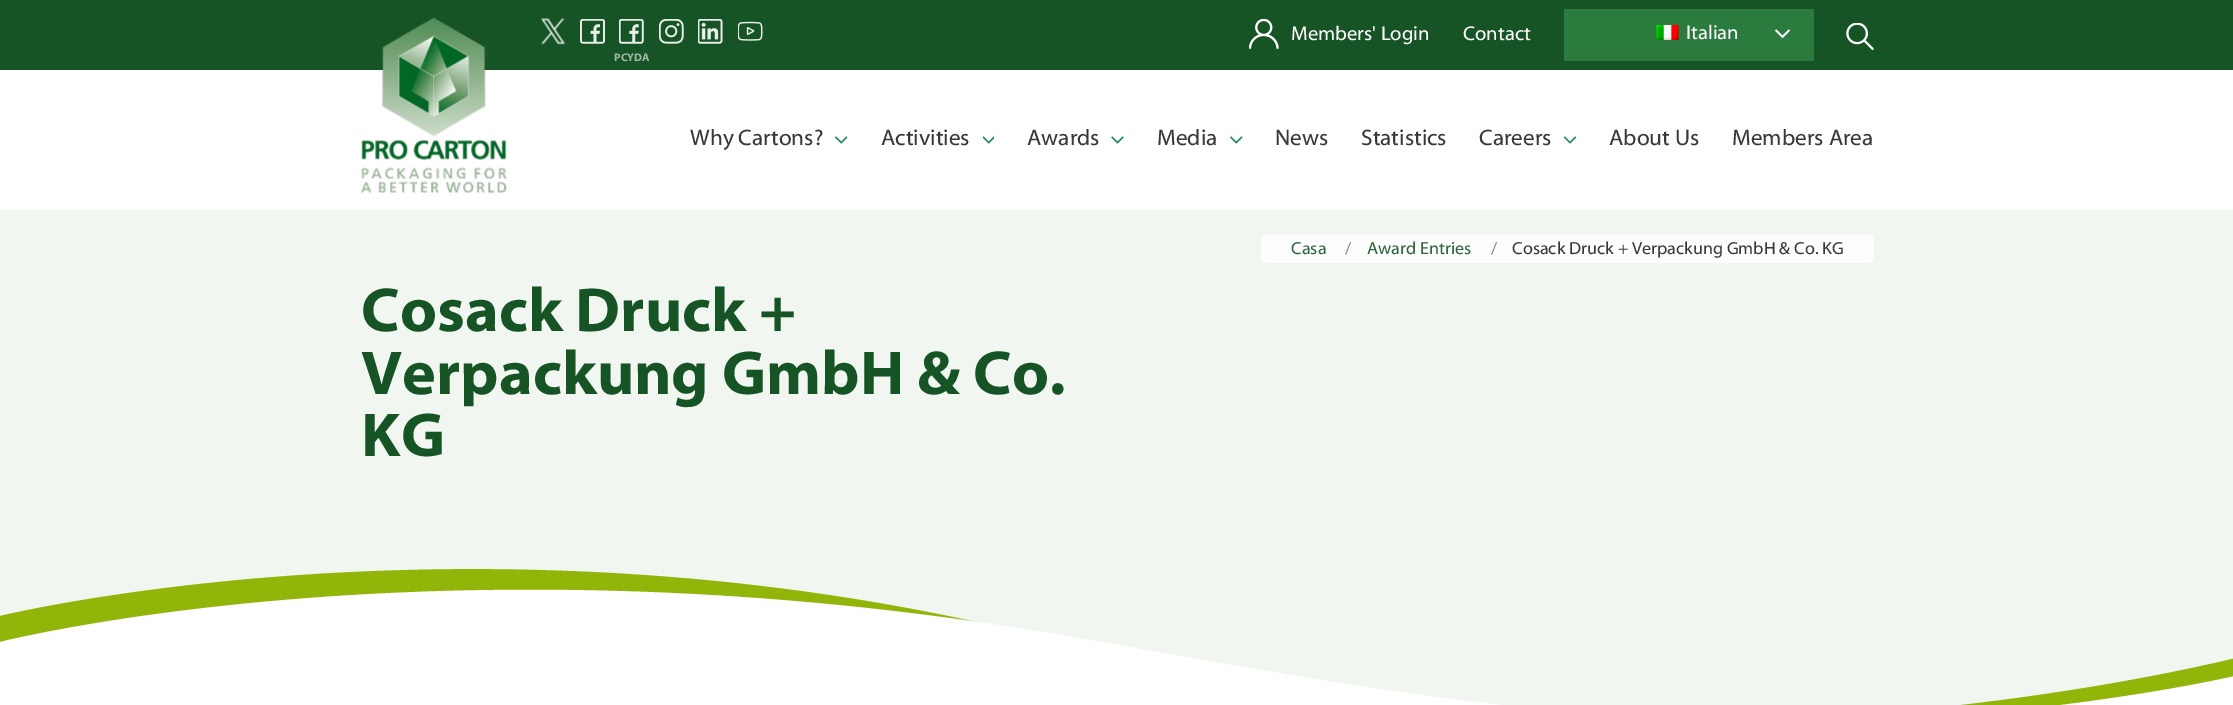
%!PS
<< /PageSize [2233 705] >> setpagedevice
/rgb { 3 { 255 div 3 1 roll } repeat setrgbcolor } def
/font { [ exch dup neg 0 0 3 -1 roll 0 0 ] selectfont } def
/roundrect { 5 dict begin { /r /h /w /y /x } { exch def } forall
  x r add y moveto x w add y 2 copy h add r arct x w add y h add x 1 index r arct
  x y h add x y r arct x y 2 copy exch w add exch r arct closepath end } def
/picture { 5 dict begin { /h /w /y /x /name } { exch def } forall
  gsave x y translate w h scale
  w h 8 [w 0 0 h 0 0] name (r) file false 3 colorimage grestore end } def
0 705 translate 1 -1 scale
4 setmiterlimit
255 255 255 rgb
0 0 2233 705 rectfill
23 84 37 rgb
0 0 2233 70 rectfill
(img/1.rgb) 1249 19 30 30 picture
44 123 62 rgb
1564 9 250 52 rectfill
(img/2.rgb) 1656 25 23 15 picture
(img/3.rgb) 1775 29 15 10 picture
(img/4.rgb) 1846 23 28 27 picture
(img/5.rgb) 541 18 25 27 picture
(img/6.rgb) 580 19 25 25 picture
(img/7.rgb) 659 19 25 25 picture
(img/8.rgb) 698 19 25 25 picture
(img/9.rgb) 738 21 25 20 picture
(img/10.rgb) 619 19 25 25 picture
(img/11.rgb) 361 17 146 176 picture
(img/12.rgb) 835 136 13 8 picture
(img/13.rgb) 983 136 11 8 picture
(img/14.rgb) 1111 136 13 8 picture
(img/12.rgb) 1230 136 13 8 picture
(img/15.rgb) 1564 136 12 8 picture
241 246 241 rgb
0 210 2233 495 rectfill
252 253 252 rgb
1261 235 613 28 5 roundrect fill
145 181 8 rgb
0 616 moveto 0 616 463 503 1003 628 curveto 1226 680 1164 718 1617 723 curveto 1986 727 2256 653 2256 653 curveto 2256 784 lineto 1 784 lineto closepath eofill
255 255 255 rgb
0 642 moveto 0 642 415 536 1005 626 curveto 1232 660 1608 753 1990 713 curveto 2168 695 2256 671 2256 671 curveto 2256 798 lineto 0 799 lineto closepath eofill
/Myriad-Regular 20 font
[
  [(Members' Login) 1291 40]
  [(Contact) 1463 40]
  [(Italian) 1686 39]
] { aload pop moveto show } forall
/Myriad-Bold 11 font
162 187 168 rgb
614 61 moveto (PCYDA) show
/Myriad-Regular 22.5 font
57 57 57 rgb
[
  [(Why Cartons?) 690 145]
  [(Activities) 881 145]
  [(Awards) 1027 145]
  [(Media) 1157 145]
  [(News) 1275 145]
  [(Statistics) 1361 145]
  [(Careers) 1479 145]
  [(About Us) 1609 145]
  [(Members Area) 1732 145]
] { aload pop moveto show } forall
/Myriad-Regular 17.5 font
46 101 59 rgb
1291 254 moveto (Casa) show
135 135 135 rgb
1345 254 moveto (/) show
46 101 59 rgb
1367 254 moveto (Award Entries) show
135 135 135 rgb
1491 254 moveto (/) show
57 57 57 rgb
1512 254 moveto (Cosack Druck + Verpackung GmbH & Co. KG) show
/Myriad-Bold 62.5 font
23 84 37 rgb
[
  [(Cosack Druck +) 361 331]
  [(Verpackung GmbH & Co.) 361 394]
  [(KG) 361 456]
] { aload pop moveto show } forall
showpage
